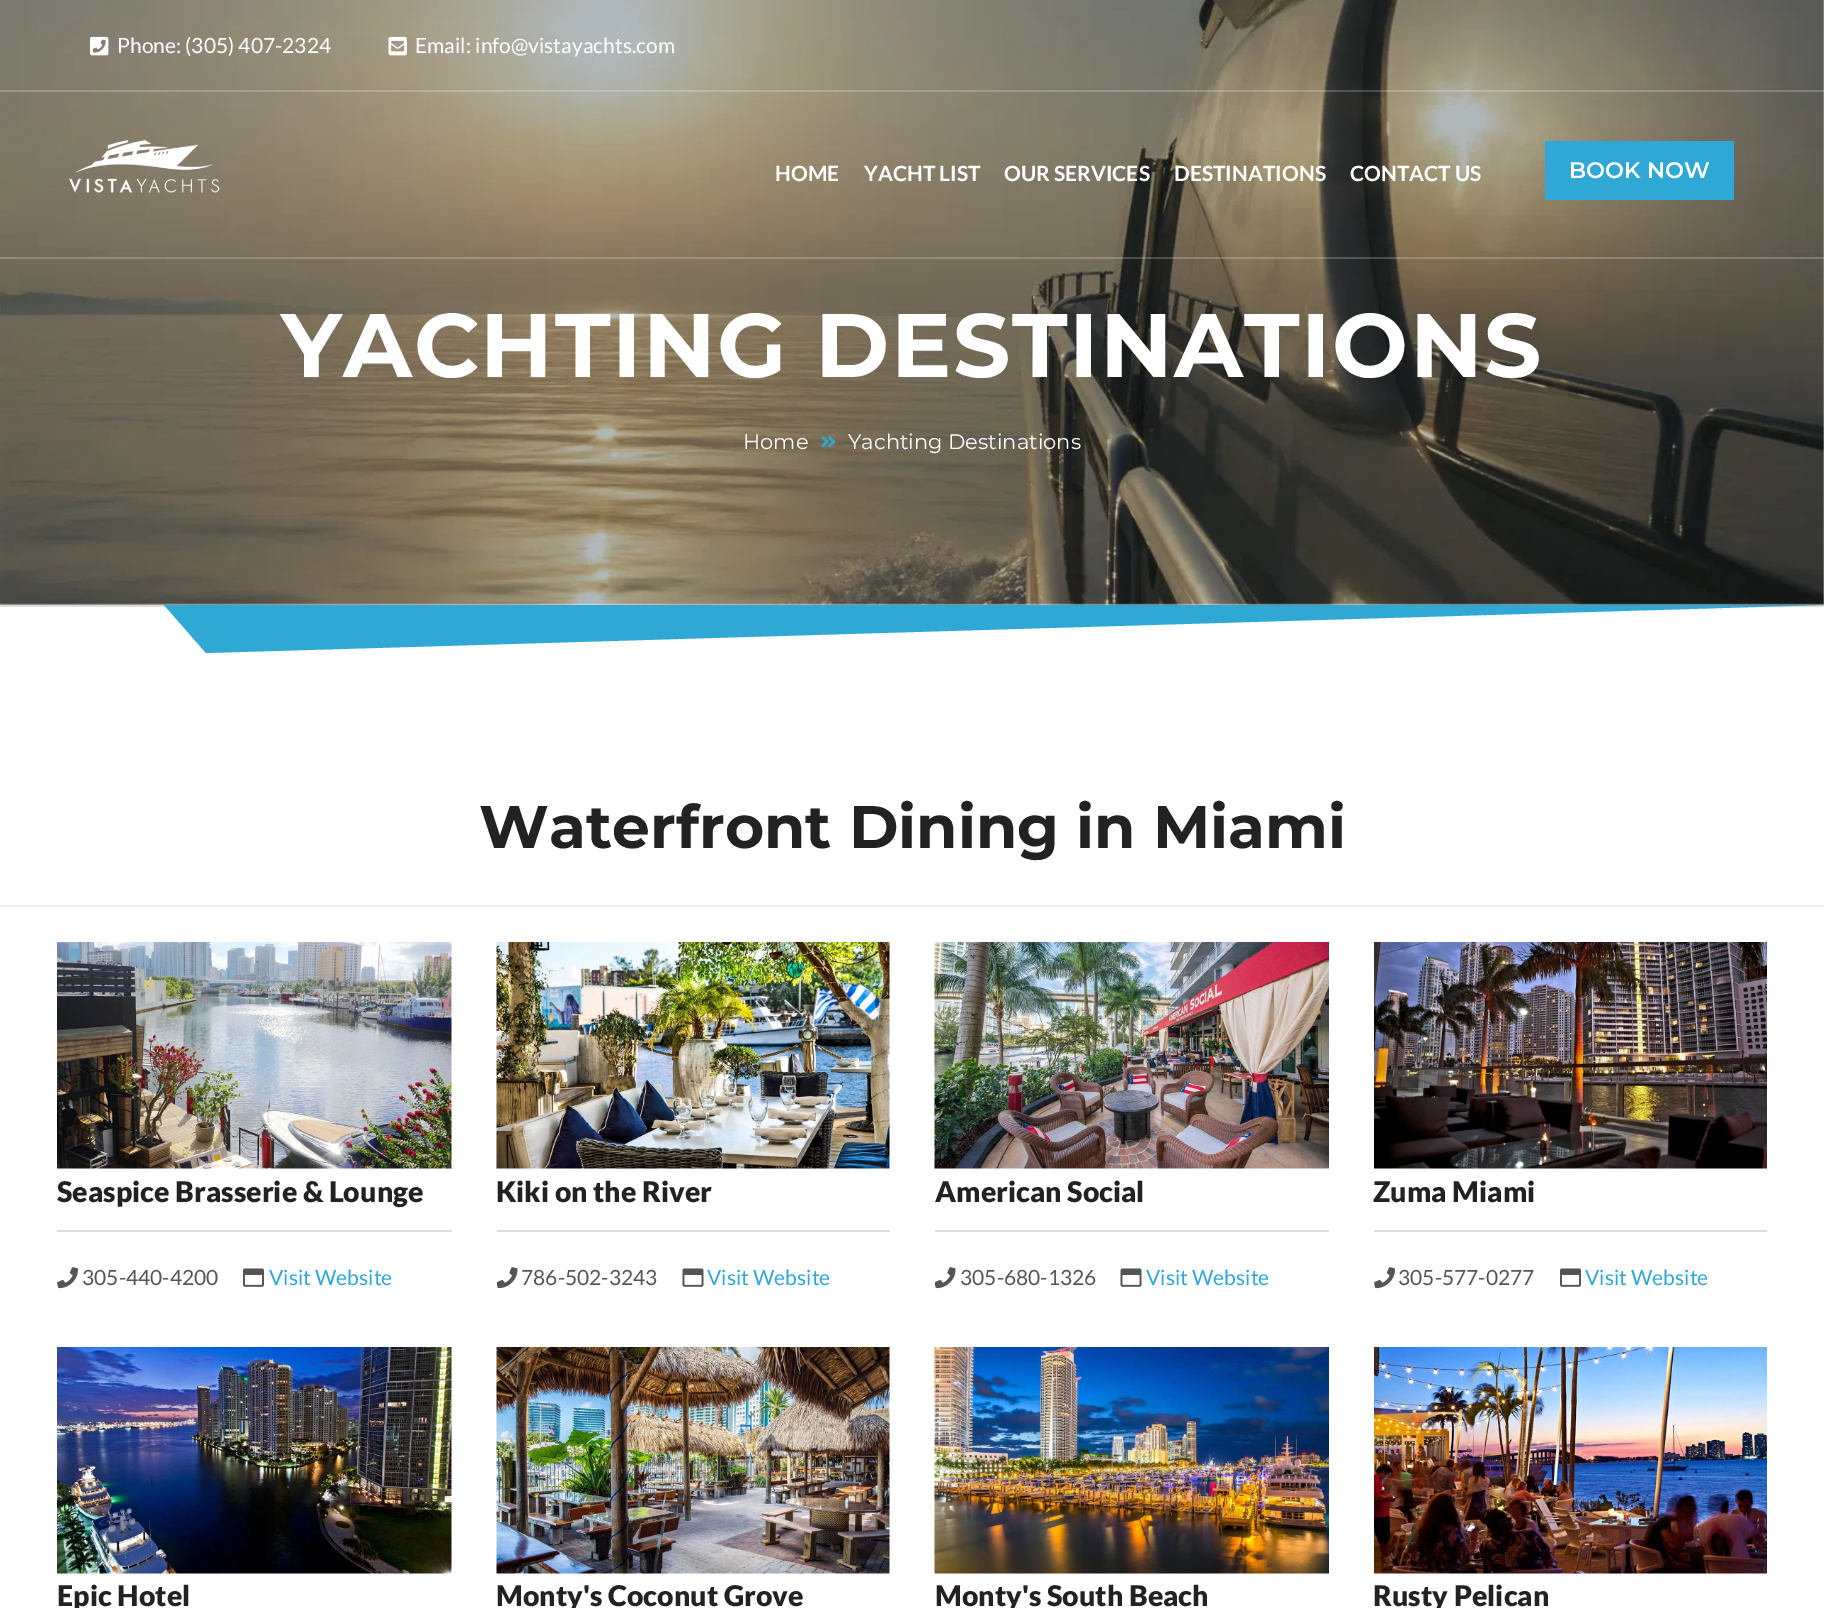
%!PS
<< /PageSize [1824 1608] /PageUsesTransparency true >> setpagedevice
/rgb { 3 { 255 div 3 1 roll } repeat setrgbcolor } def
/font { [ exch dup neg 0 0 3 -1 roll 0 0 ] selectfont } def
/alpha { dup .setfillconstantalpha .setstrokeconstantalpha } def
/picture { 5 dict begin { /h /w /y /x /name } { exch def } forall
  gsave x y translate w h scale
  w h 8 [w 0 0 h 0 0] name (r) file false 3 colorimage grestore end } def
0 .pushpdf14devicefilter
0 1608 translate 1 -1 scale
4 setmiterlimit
255 255 255 rgb
0 0 1824 1608 rectfill
(img/4.rgb) 0 0 1824 605 picture
0.2 alpha
0 90 1824 2 rectfill
1 alpha
(img/1.rgb) 90 36 19 20 picture
(img/2.rgb) 388 36 19 20 picture
0.2 alpha
0 257 1824 2 rectfill
1 alpha
(img/3.rgb) 68 139 152 54 picture
48 168 213 rgb
1545 141 189 59 rectfill
(img/5.rgb) 821 436 15 12 picture
221 221 221 rgb
0 605 1824 2 rectfill
48 168 213 rgb
164 605 moveto 1824 605 lineto 206 653 lineto closepath fill
238 238 238 rgb
0 905 1824 2 rectfill
(img/6.rgb) 57 942 395 227 picture
221 221 221 rgb
57 1230 395 2 rectfill
(img/7.rgb) 57 1267 21 22 picture
(img/8.rgb) 243 1268 21 19 picture
(img/9.rgb) 496 942 394 227 picture
497 1230 393 2 rectfill
(img/10.rgb) 497 1267 21 22 picture
(img/11.rgb) 682 1268 22 19 picture
(img/12.rgb) 934 942 395 227 picture
935 1230 394 2 rectfill
(img/10.rgb) 935 1267 21 22 picture
(img/11.rgb) 1120 1268 22 19 picture
(img/13.rgb) 1374 942 393 227 picture
1374 1230 393 2 rectfill
(img/7.rgb) 1374 1267 21 22 picture
(img/8.rgb) 1560 1268 21 19 picture
(img/14.rgb) 57 1347 395 227 picture
(img/15.rgb) 496 1347 394 227 picture
(img/16.rgb) 934 1347 395 227 picture
(img/17.rgb) 1374 1347 393 227 picture
/Lato-Regular 21 font
255 255 255 rgb
117 53 moveto (Phone: \(305\) 407-2324) show
415 53 moveto (Email: info@vistayachts.com) show
/Lato-Bold 21 font
[
  [(HOME) 775 181]
  [(YACHT LIST) 864 181]
  [(OUR SERVICES) 1004 181]
  [(DESTINATIONS) 1174 181]
  [(CONTACT US) 1350 181]
] { aload pop moveto show } forall
/Montserrat-SemiBold 22.5 font
1569 178 moveto (BOOK NOW) show
/Montserrat-Bold 90 font
281 377 moveto 1.5 0 (YACHTING DESTINATIONS) ashow
/Montserrat-Regular 21 font
743 449 moveto (Home) show
848 449 moveto (Yachting Destinations) show
/Montserrat-Bold 60 font
34 34 34 rgb
479 848 moveto (Waterfront Dining in Miami) show
/Lato-Black 28.5 font
57 1202 moveto (Seaspice Brasserie & Lounge) show
/Lato-Regular 21 font
85 85 85 rgb
82 1285 moveto (305-440-4200) show
48 168 213 rgb
269 1285 moveto (Visit Website) show
/Lato-Black 28.5 font
34 34 34 rgb
496 1202 moveto (Kiki on the River) show
/Lato-Regular 21 font
85 85 85 rgb
521 1285 moveto (786-502-3243) show
48 168 213 rgb
707 1285 moveto (Visit Website) show
/Lato-Black 28.5 font
34 34 34 rgb
935 1202 moveto (American Social) show
/Lato-Regular 21 font
85 85 85 rgb
960 1285 moveto (305-680-1326) show
48 168 213 rgb
1146 1285 moveto (Visit Website) show
/Lato-Black 28.5 font
34 34 34 rgb
1373 1202 moveto (Zuma Miami) show
/Lato-Regular 21 font
85 85 85 rgb
1398 1285 moveto (305-577-0277) show
48 168 213 rgb
1585 1285 moveto (Visit Website) show
/Lato-Black 28.5 font
34 34 34 rgb
[
  [(Epic Hotel) 57 1606]
  [(Monty's Coconut Grove) 496 1606]
  [(Monty's South Beach) 935 1606]
  [(Rusty Pelican) 1373 1606]
] { aload pop moveto show } forall
.poppdf14devicefilter showpage
